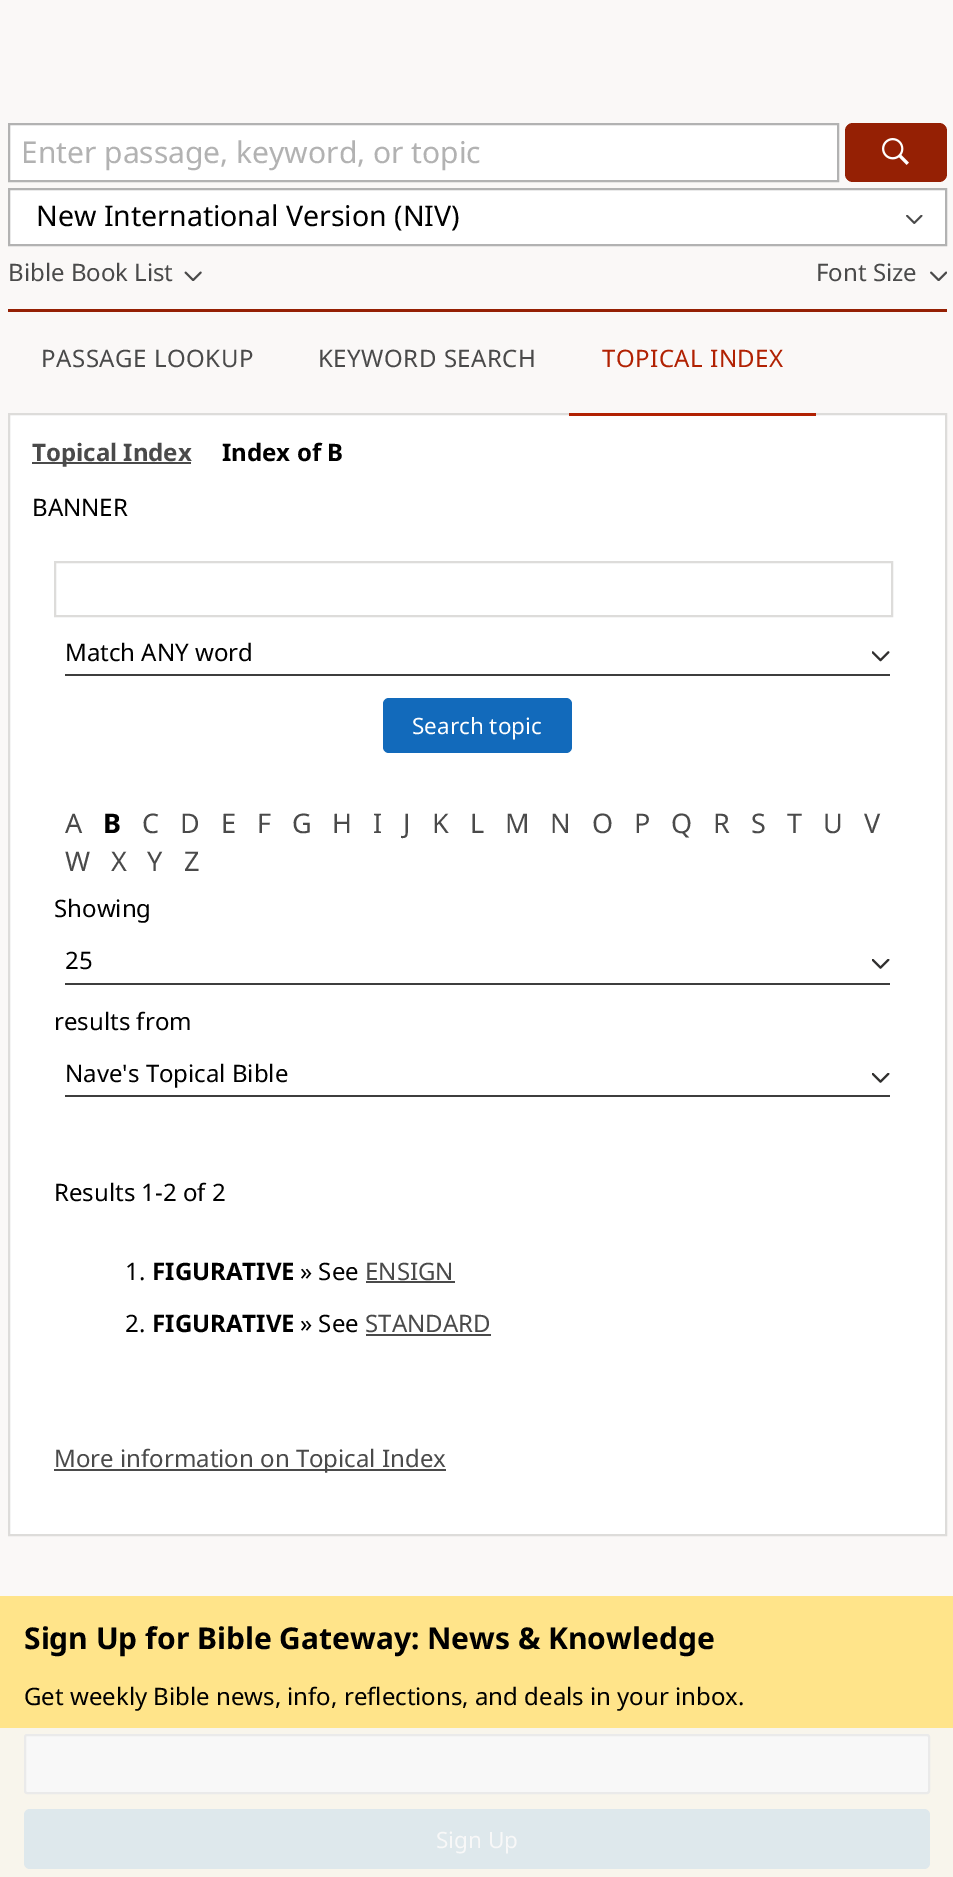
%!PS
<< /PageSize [953 1877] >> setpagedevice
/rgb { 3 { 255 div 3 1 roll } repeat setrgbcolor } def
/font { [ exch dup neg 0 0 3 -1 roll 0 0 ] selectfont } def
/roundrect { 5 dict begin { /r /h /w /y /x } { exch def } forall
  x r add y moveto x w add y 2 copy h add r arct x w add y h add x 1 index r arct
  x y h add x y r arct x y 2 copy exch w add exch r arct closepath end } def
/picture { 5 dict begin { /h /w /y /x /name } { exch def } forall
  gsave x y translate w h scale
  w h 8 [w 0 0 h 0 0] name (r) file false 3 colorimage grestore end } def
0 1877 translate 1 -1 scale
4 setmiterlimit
250 248 247 rgb
0 0 953 1877 rectfill
255 255 255 rgb
9 124 moveto 838 124 lineto 838 181 lineto 9 181 lineto closepath gsave fill grestore
178 178 178 rgb
2 setlinewidth
stroke
149 32 4 rgb
845 123 102 59 8 roundrect fill
(img/1.rgb) 882 138 27 27 picture
255 255 255 rgb
9 189 moveto 946 189 lineto 946 245 lineto 9 245 lineto closepath gsave fill grestore
178 178 178 rgb
stroke
(img/2.rgb) 906 215 17 9 picture
(img/3.rgb) 184 271 18 10 picture
(img/4.rgb) 930 271 17 10 picture
149 32 4 rgb
8 309 939 3 rectfill
255 255 255 rgb
9 414 moveto 946 414 lineto 946 1535 lineto 9 1535 lineto closepath gsave fill grestore
221 220 218 rgb
stroke
177 33 2 rgb
569 413 247 3 rectfill
74 74 74 rgb
32 462 159 2 rectfill
221 220 218 rgb
55 562 837 54 rectstroke
(img/5.rgb) 872 651 18 11 picture
62 62 61 rgb
65 674 825 2 rectfill
18 106 187 rgb
383 698 189 55 6 roundrect fill
(img/6.rgb) 872 959 18 10 picture
62 62 61 rgb
65 983 825 2 rectfill
(img/6.rgb) 872 1073 18 10 picture
[
  [65 1095 825 2 62 62 61]
  [366 1281 89 2 74 74 74]
  [366 1334 125 2 74 74 74]
  [54 1469 392 2 74 74 74]
  [0 1596 953 132 255 228 138]
  [0 1728 953 149 248 245 236]
] { aload pop rgb rectfill } forall
248 248 248 rgb
25 1735 904 58 2 roundrect gsave fill grestore
234 234 234 rgb
stroke
222 232 236 rgb
24 1809 906 60 6 roundrect fill
/NotoSans-Regular 30 font
178 178 178 rgb
21 163 moveto (Enter passage, keyword, or topic) show
/NotoSans-Regular 28.5 font
0 0 0 rgb
36 226 moveto (New International Version \(NIV\)) show
/NotoSans-Regular 24 font
74 74 74 rgb
8 281 moveto (Bible Book List) show
816 281 moveto (Font Size) show
41 367 moveto 0.5 0 (PASSAGE LOOKUP) ashow
318 367 moveto 0.5 0 (KEYWORD SEARCH) ashow
177 33 2 rgb
602 367 moveto 0.5 0 (TOPICAL INDEX) ashow
/NotoSans-Bold 24 font
74 74 74 rgb
32 461 moveto (Topical Index) show
0 0 0 rgb
222 461 moveto (Index of B) show
/NotoSans-Regular 24 font
32 516 moveto (BANNER) show
65 661 moveto (Match ANY word) show
/NotoSans-Regular 22.5 font
255 255 255 rgb
412 734 moveto (Search topic) show
/NotoSans-Regular 27 font
74 74 74 rgb
65 833 moveto (A) show
/NotoSans-Bold 27 font
0 0 0 rgb
103 833 moveto (B) show
/NotoSans-Regular 27 font
74 74 74 rgb
[
  [(C) 142 833]
  [(D) 180 833]
  [(E) 221 833]
  [(F) 257 833]
  [(G) 292 833]
  [(H) 332 833]
  [(I) 373 833]
  [(J) 403 833]
  [(K) 432 833]
  [(L) 470 833]
  [(M) 505 833]
  [(N) 550 833]
  [(O) 592 833]
  [(P) 634 833]
  [(Q) 671 833]
  [(R) 713 833]
  [(S) 751 833]
  [(T) 787 833]
  [(U) 823 833]
  [(V) 864 833]
  [(W) 65 871]
  [(X) 111 871]
  [(Y) 147 871]
  [(Z) 184 871]
] { aload pop moveto show } forall
/NotoSans-Regular 24 font
0 0 0 rgb
[
  [(Showing) 54 917]
  [(25) 65 969]
  [(results from) 54 1030]
  [(Nave's Topical Bible) 65 1082]
  [(Results 1-2 of 2) 54 1201]
  [(1.) 125 1280]
] { aload pop moveto show } forall
/NotoSans-Bold 24 font
152 1280 moveto (FIGURATIVE) show
/NotoSans-Regular 24 font
300 1280 moveto (» See) show
74 74 74 rgb
365 1280 moveto (ENSIGN) show
0 0 0 rgb
125 1332 moveto (2.) show
/NotoSans-Bold 24 font
152 1332 moveto (FIGURATIVE) show
/NotoSans-Regular 24 font
300 1332 moveto (» See) show
74 74 74 rgb
365 1332 moveto (STANDARD) show
54 1467 moveto (More information on Topical Index) show
/NotoSans-Bold 30 font
0 0 0 rgb
24 1649 moveto (Sign Up for Bible Gateway: News & Knowledge) show
/NotoSans-Regular 24 font
24 1705 moveto (Get weekly Bible news, info, reflections, and deals in your inbox.) show
/NotoSans-Regular 22.5 font
248 248 248 rgb
436 1848 moveto (Sign Up) show
showpage
